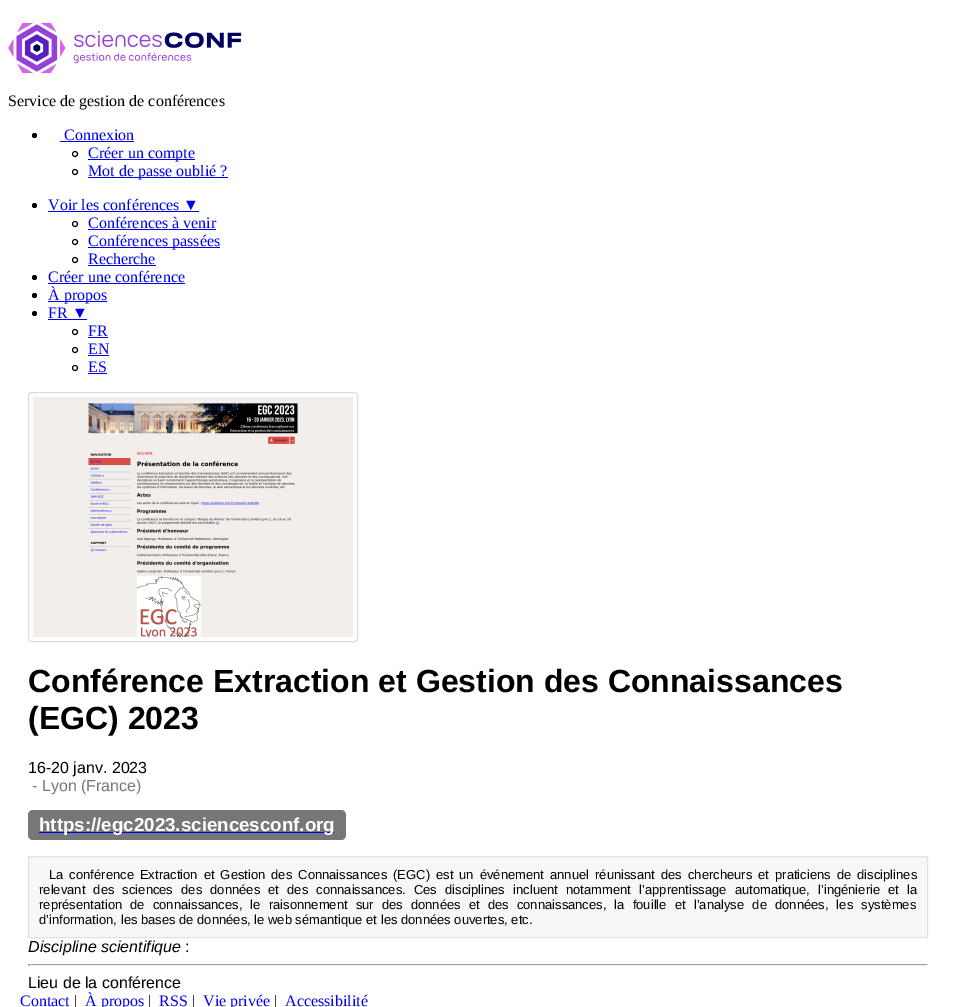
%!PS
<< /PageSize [956 1007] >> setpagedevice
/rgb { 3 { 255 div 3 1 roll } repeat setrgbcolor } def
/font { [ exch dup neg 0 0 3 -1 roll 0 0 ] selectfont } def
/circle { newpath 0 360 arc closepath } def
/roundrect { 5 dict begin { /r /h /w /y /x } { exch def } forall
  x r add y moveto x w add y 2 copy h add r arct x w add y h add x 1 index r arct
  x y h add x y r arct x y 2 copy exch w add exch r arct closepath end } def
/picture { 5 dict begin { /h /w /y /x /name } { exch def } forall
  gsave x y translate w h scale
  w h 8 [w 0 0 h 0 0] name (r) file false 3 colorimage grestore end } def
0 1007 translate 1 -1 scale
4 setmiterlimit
255 255 255 rgb
0 0 956 1007 rectfill
(img/1.rgb) 8 23 234 50 picture
0 0 0 rgb
34.5 135.5 2.5 circle fill
0 0 238 rgb
60 141 74 1 rectfill
0 0 0 rgb
75 154 2.5 circle stroke
0 0 238 rgb
88 159 107 1 rectfill
0 0 0 rgb
75 172 2.5 circle stroke
0 0 238 rgb
88 177 140 1 rectfill
0 0 0 rgb
34.5 205.5 2.5 circle fill
0 0 238 rgb
48 211 151 1 rectfill
0 0 0 rgb
75 224 2.5 circle stroke
0 0 238 rgb
88 229 128 1 rectfill
0 0 0 rgb
75 242 2.5 circle stroke
0 0 238 rgb
88 247 132 1 rectfill
0 0 0 rgb
75 260 2.5 circle stroke
0 0 238 rgb
88 265 68 1 rectfill
0 0 0 rgb
34.5 277.5 2.5 circle fill
0 0 238 rgb
48 283 137 1 rectfill
0 0 0 rgb
34.5 295.5 2.5 circle fill
0 0 238 rgb
48 301 59 1 rectfill
0 0 0 rgb
34.5 313.5 2.5 circle fill
0 0 238 rgb
48 319 39 1 rectfill
0 0 0 rgb
75 332 2.5 circle stroke
0 0 238 rgb
88 337 20 1 rectfill
0 0 0 rgb
75 350 2.5 circle stroke
0 0 238 rgb
88 355 21 1 rectfill
0 0 0 rgb
75 368 2.5 circle stroke
0 0 238 rgb
88 373 19 1 rectfill
221 221 221 rgb
28.5 392.5 329 249 3.5 roundrect stroke
(img/2.rgb) 33 397 320 240 picture
119 119 119 rgb
28 810 318 30 5 roundrect fill
0 0 238 rgb
39 832 295 1 rectfill
247 247 249 rgb
28.5 856.5 moveto 927.5 856.5 lineto 927.5 937.5 lineto 28.5 937.5 lineto closepath gsave fill grestore
225 225 232 rgb
stroke
[
  [28 964 900 1 159 159 159]
  [927 964 1 2 238 238 238]
  [28 965 900 1 238 238 238]
  [28 964 1 2 159 159 159]
] { aload pop rgb rectfill } forall
/LiberationSerif-Regular 16 font
0 0 0 rgb
8 106 moveto (Service de gestion de conférences) show
0 0 238 rgb
[
  [(Connexion) 64 140]
  [(Créer un compte) 88 158]
  [(Mot de passe oublié ?) 88 176]
  [(Voir les conférences ▼) 48 210]
  [(Conférences à venir) 88 228]
  [(Conférences passées) 88 246]
  [(Recherche) 88 264]
  [(Créer une conférence) 48 282]
  [(À propos) 48 300]
  [(FR ▼) 48 318]
  [(FR) 88 336]
  [(EN) 88 354]
  [(ES) 88 372]
] { aload pop moveto show } forall
/LiberationSans-Bold 32 font
0 0 0 rgb
28 692 moveto (Conférence Extraction et Gestion des Connaissances) show
28 729 moveto (\(EGC\) 2023) show
/LiberationSans-Regular 16 font
28 773 moveto (16-20 janv. 2023) show
118 118 118 rgb
32 791 moveto (- Lyon \(France\)) show
/LiberationSans-Bold 18.75 font
255 255 255 rgb
39 831 moveto (https://egc2023.sciencesconf.org) show
/LiberationSans-Regular 13 font
0 0 0 rgb
49 879 moveto 2.4 0 32 (La conférence Extraction et Gestion des Connaissances \(EGC\) est un événement annuel réunissant des chercheurs et praticiens de disciplines) widthshow
39 894 moveto 4.5 0 32 (relevant des sciences des données et des connaissances. Ces disciplines incluent notamment l’apprentissage automatique, l’ingénierie et la) widthshow
39 909 moveto 4.5 0 32 (représentation de connaissances, le raisonnement sur des données et des connaissances, la fouille et l’analyse de données, les systèmes) widthshow
39 924 moveto (d’information, les bases de données, le web sémantique et les données ouvertes, etc.) show
/LiberationSans-Italic 16 font
28 952 moveto (Discipline scientifique) show
/LiberationSans-Regular 16 font
185 952 moveto (:) show
28 988 moveto (Lieu de la conférence) show
/LiberationSerif-Regular 16 font
0 0 238 rgb
20 1006 moveto (Contact) show
0 0 0 rgb
74 1006 moveto (|) show
0 0 238 rgb
85 1006 moveto (À propos) show
0 0 0 rgb
148 1006 moveto (|) show
0 0 238 rgb
159 1006 moveto (RSS) show
0 0 0 rgb
192 1006 moveto (|) show
0 0 238 rgb
203 1006 moveto (Vie privée) show
0 0 0 rgb
274 1006 moveto (|) show
0 0 238 rgb
285 1006 moveto (Accessibilité) show
showpage
